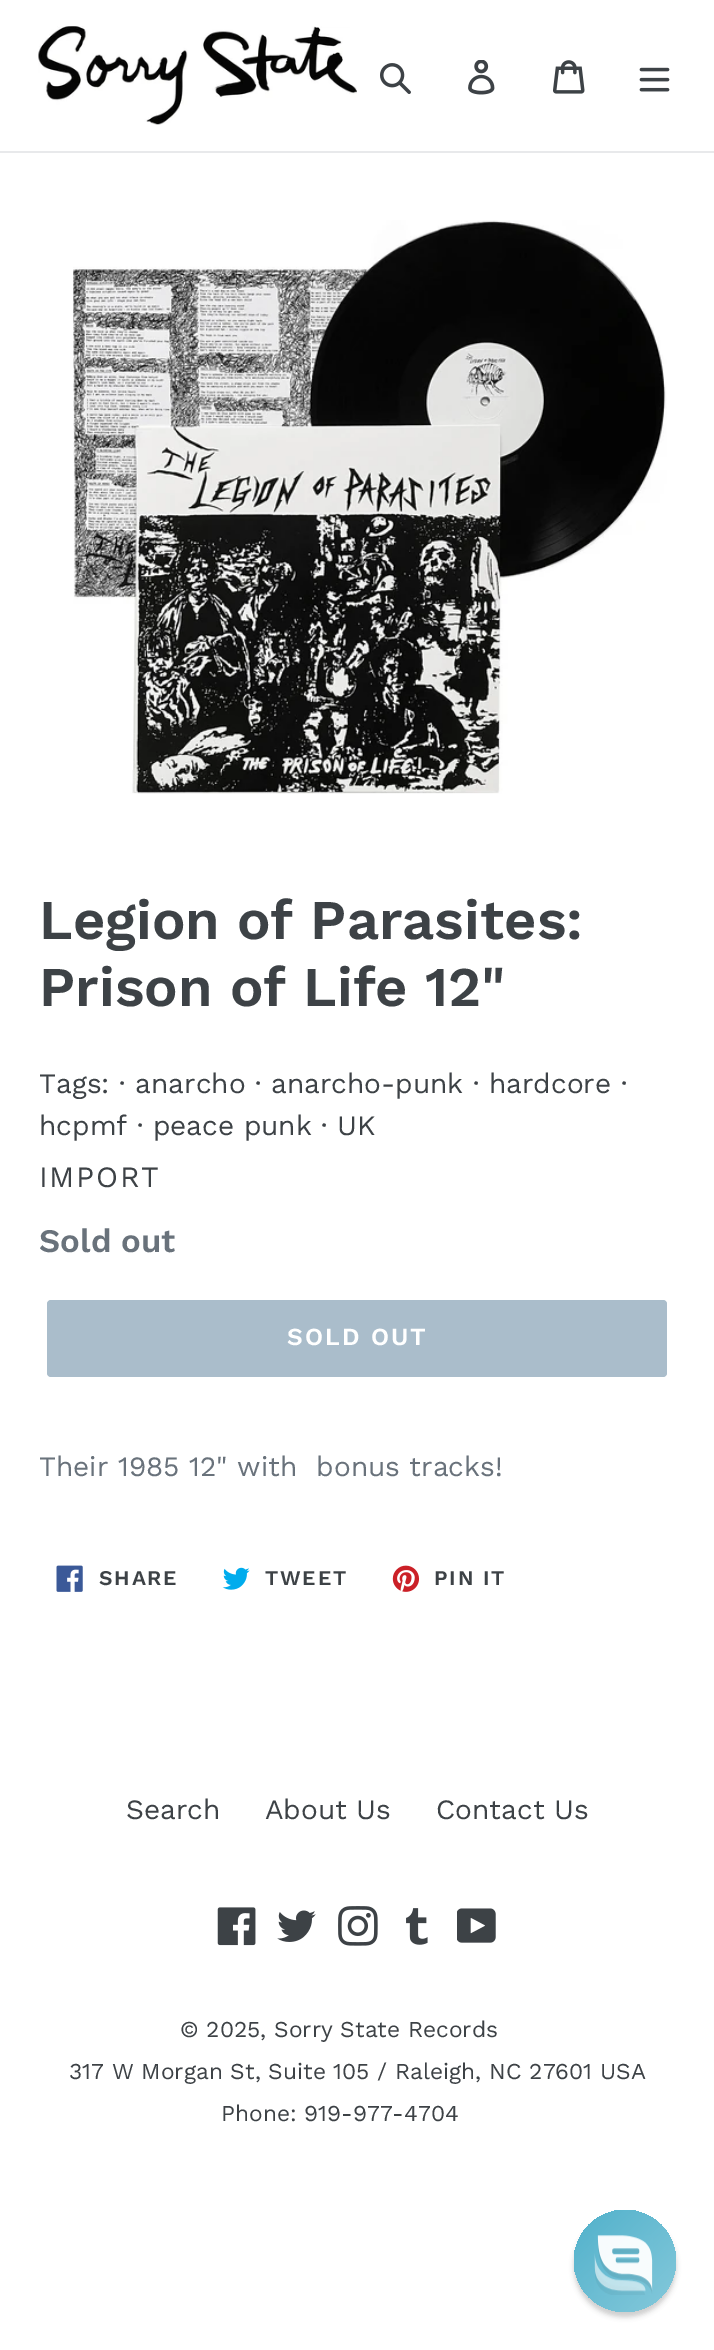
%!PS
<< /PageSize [714 2350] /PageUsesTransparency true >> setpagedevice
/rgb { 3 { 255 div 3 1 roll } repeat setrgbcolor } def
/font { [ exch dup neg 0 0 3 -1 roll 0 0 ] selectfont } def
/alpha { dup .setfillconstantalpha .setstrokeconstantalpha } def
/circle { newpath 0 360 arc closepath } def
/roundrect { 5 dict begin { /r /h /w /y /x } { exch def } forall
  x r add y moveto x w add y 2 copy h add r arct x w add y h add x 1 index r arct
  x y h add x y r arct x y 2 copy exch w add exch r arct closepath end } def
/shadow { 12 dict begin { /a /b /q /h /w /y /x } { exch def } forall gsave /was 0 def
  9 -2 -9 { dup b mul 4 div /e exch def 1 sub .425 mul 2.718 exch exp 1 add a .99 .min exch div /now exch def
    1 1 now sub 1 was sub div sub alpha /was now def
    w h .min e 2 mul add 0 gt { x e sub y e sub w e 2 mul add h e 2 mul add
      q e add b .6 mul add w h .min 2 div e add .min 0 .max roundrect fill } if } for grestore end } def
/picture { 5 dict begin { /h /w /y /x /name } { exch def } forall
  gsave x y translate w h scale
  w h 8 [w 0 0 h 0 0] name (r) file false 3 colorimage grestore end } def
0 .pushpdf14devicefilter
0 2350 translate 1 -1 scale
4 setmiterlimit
255 255 255 rgb
0 0 714 2350 rectfill
232 233 235 rgb
0 151 714 2 rectfill
(img/1.rgb) 38 26 319 99 picture
(img/2.rgb) 380 63 31 31 picture
(img/3.rgb) 468 60 27 35 picture
(img/4.rgb) 553 60 32 34 picture
(img/5.rgb) 639 67 31 25 picture
(img/6.rgb) 73 220 594 574 picture
170 189 203 rgb
47 1300 620 77 4 roundrect fill
(img/7.rgb) 56 1565 27 27 picture
(img/8.rgb) 222 1567 28 23 picture
(img/9.rgb) 392 1565 28 27 picture
(img/10.rgb) 217 1907 39 39 picture
(img/11.rgb) 277 1910 39 32 picture
(img/12.rgb) 338 1906 40 40 picture
(img/13.rgb) 406 1908 22 37 picture
(img/14.rgb) 457 1908 39 35 picture
13 13 13 rgb
574 2216 102 101 50.5 2.5 0.2 shadow
gsave 625 2261 51 circle clip newpath
<< /ShadingType 2 /ColorSpace /DeviceRGB /Coords [574 2210 676 2312] /Extend [true true] /Function << /FunctionType 2 /Domain [0 1] /C0 [0.318 0.694 0.796] /C1 [0.522 0.788 0.859] /N 1 >> >> shfill grestore
(img/15.rgb) 594 2235 59 60 picture
/WorkSans-SemiBold 56 font
61 66 70 rgb
39 939 moveto (Legion of Parasites:) show
39 1006 moveto (Prison of Life 12") show
/WorkSans-Regular 28 font
39 1093 moveto (Tags: · anarcho · anarcho-punk · hardcore ·) show
39 1135 moveto (hcpmf · peace punk · UK) show
/WorkSans-Regular 29.5 font
39 1187 moveto 1.75 0 (IMPORT) ashow
/WorkSans-SemiBold 33 font
105 114 123 rgb
39 1252 moveto (Sold out) show
/WorkSans-SemiBold 24.5 font
255 255 255 rgb
287 1345 moveto 2 0 (SOLD OUT) ashow
/WorkSans-Regular 28 font
105 114 123 rgb
39 1476 moveto (Their 1985 12" with  bonus tracks!) show
/WorkSans-SemiBold 21 font
61 66 70 rgb
99 1585 moveto 1.75 0 (SHARE) ashow
265 1585 moveto 1.75 0 (TWEET) ashow
434 1585 moveto 1.75 0 (PIN IT) ashow
/WorkSans-Regular 28 font
[
  [(Search) 126 1819]
  [(About Us) 265 1819]
  [(Contact Us) 436 1819]
] { aload pop moveto show } forall
/WorkSans-Regular 22.75 font
[
  [(© 2025, Sorry State Records) 180 2037]
  [(317 W Morgan St, Suite 105 / Raleigh, NC 27601 USA) 69 2079]
  [(Phone: 919-977-4704) 221 2121]
] { aload pop moveto show } forall
.poppdf14devicefilter showpage
